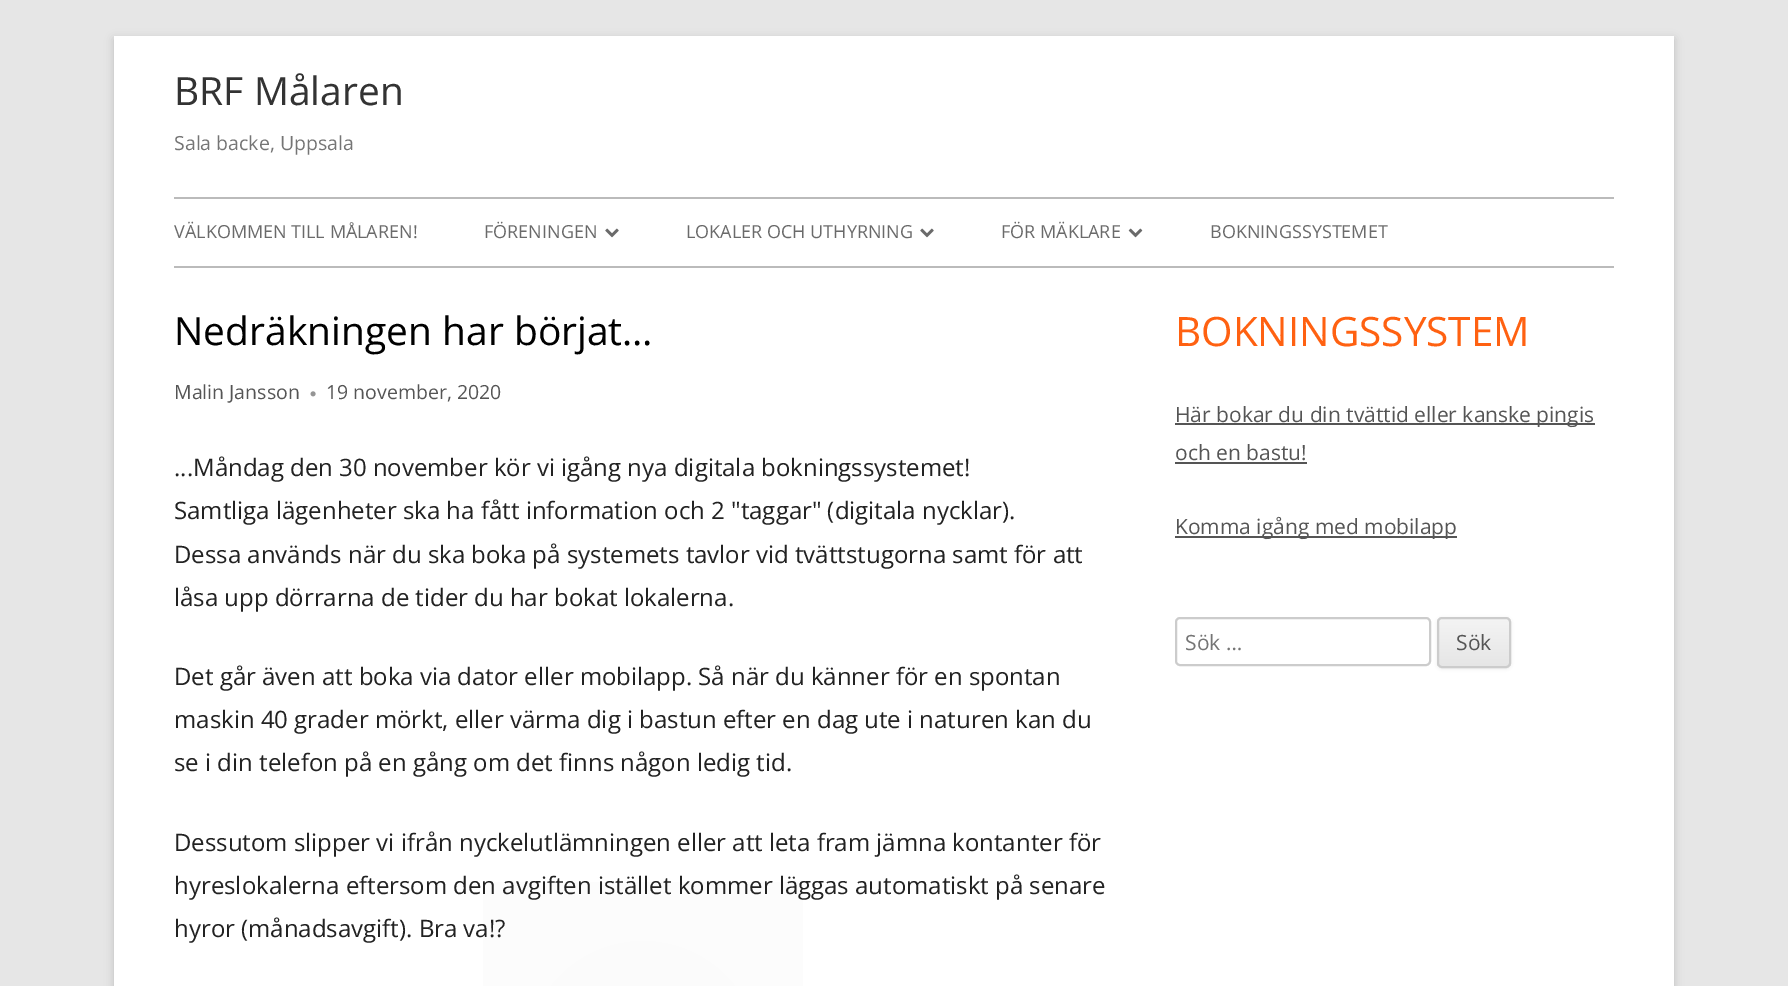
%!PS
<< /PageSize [1788 986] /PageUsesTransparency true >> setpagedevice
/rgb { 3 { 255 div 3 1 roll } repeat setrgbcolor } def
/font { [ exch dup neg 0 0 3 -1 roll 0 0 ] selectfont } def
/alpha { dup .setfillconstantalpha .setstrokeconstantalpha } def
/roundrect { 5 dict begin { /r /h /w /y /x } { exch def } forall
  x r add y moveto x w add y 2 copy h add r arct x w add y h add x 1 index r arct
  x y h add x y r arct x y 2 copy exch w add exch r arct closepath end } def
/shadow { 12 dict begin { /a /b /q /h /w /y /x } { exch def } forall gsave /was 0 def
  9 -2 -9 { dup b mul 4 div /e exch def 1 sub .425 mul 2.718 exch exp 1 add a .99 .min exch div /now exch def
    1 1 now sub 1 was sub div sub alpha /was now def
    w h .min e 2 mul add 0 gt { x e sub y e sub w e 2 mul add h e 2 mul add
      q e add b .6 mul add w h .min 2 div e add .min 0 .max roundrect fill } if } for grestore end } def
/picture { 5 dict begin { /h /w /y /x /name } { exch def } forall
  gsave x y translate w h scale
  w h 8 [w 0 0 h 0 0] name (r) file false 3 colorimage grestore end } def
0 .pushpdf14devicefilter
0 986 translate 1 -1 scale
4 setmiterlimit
230 230 230 rgb
0 0 1788 986 rectfill
100 100 100 rgb
114 39 1560 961 0 4.5 0.3 shadow
[
  [114 36 1560 950 255 255 255]
  [174 197 1440 2 187 187 187]
  [174 266 1440 2 187 187 187]
] { aload pop rgb rectfill } forall
(img/1.rgb) 605 228 14 10 picture
(img/1.rgb) 920 228 14 10 picture
(img/2.rgb) 1128 228 15 10 picture
gsave 483 882 moveto 803 882 lineto 803 986 lineto 483 986 lineto closepath clip newpath 643 1058 translate 469 469 scale
<< /ShadingType 3 /ColorSpace /DeviceRGB /Coords [0 0 0 0 0 1] /Extend [true true] /Function << /FunctionType 2 /Domain [0 1] /C0 [0.984 0.984 0.984] /C1 [1 1 1] /N 1 >> >> shfill grestore
(img/3.rgb) 310 391 6 6 picture
[
  [1175 423 420 2 85 85 85]
  [1175 462 132 2 85 85 85]
  [1175 536 282 2 85 85 85]
] { aload pop rgb rectfill } forall
204 204 204 rgb
2 setlinewidth
1176 618 254 47 4 roundrect stroke
64 64 64 rgb
1437 618 74 51 5 1.5 0.1 shadow
gsave
1437 617 74 51 5 roundrect clip newpath
gsave 1437 618 moveto 1511 618 lineto 1511 666 lineto 1437 666 lineto closepath clip newpath
<< /ShadingType 2 /ColorSpace /DeviceRGB /Coords [1474 618 1474 666] /Extend [true true] /Function << /FunctionType 2 /Domain [0 1] /C0 [0.957 0.957 0.957] /C1 [0.902 0.902 0.902] /N 1 >> >> shfill grestore
grestore
204 204 204 rgb
1438 618 72 49 4 roundrect stroke
/OpenSans-Regular 39 font
51 51 51 rgb
174 105 moveto (BRF Målaren) show
/OpenSans-Regular 19.5 font
117 117 117 rgb
174 150 moveto (Sala backe, Uppsala) show
/OpenSans-Regular 18 font
106 106 106 rgb
[
  [(VÄLKOMMEN TILL MÅLAREN!) 174 238]
  [(FÖRENINGEN) 484 238]
  [(LOKALER OCH UTHYRNING) 686 238]
  [(FÖR MÄKLARE) 1001 238]
  [(BOKNINGSSYSTEMET) 1210 238]
] { aload pop moveto show } forall
/OpenSans-Regular 39 font
0 0 0 rgb
174 345 moveto (Nedräkningen har börjat…) show
/OpenSans-Regular 19.5 font
85 85 85 rgb
174 399 moveto (Malin Jansson) show
326 399 moveto (19 november, 2020) show
/OpenSans-Regular 24 font
34 34 34 rgb
[
  [(...Måndag den 30 november kör vi igång nya digitala bokningssystemet!) 174 476]
  [(Samtliga lägenheter ska ha fått information och 2 "taggar" \(digitala nycklar\).) 174 519]
  [(Dessa används när du ska boka på systemets tavlor vid tvättstugorna samt för att) 174 563]
  [(låsa upp dörrarna de tider du har bokat lokalerna.) 174 606]
  [(Det går även att boka via dator eller mobilapp. Så när du känner för en spontan) 174 685]
  [(maskin 40 grader mörkt, eller värma dig i bastun efter en dag ute i naturen kan du) 174 728]
  [(se i din telefon på en gång om det finns någon ledig tid.) 174 771]
  [(Dessutom slipper vi ifrån nyckelutlämningen eller att leta fram jämna kontanter för) 174 851]
  [(hyreslokalerna eftersom den avgiften istället kommer läggas automatiskt på senare) 174 894]
  [(hyror \(månadsavgift\). Bra va!?) 174 937]
] { aload pop moveto show } forall
/OpenSans-Regular 40.5 font
255 97 17 rgb
1175 346 moveto (BOKNINGSSYSTEM) show
/OpenSans-Regular 21 font
85 85 85 rgb
[
  [(Här bokar du din tvättid eller kanske pingis) 1175 422]
  [(och en bastu!) 1175 460]
  [(Komma igång med mobilapp) 1175 534]
] { aload pop moveto show } forall
117 117 117 rgb
1185 650 moveto (Sök …) show
85 85 85 rgb
1456 650 moveto (Sök) show
.poppdf14devicefilter showpage
